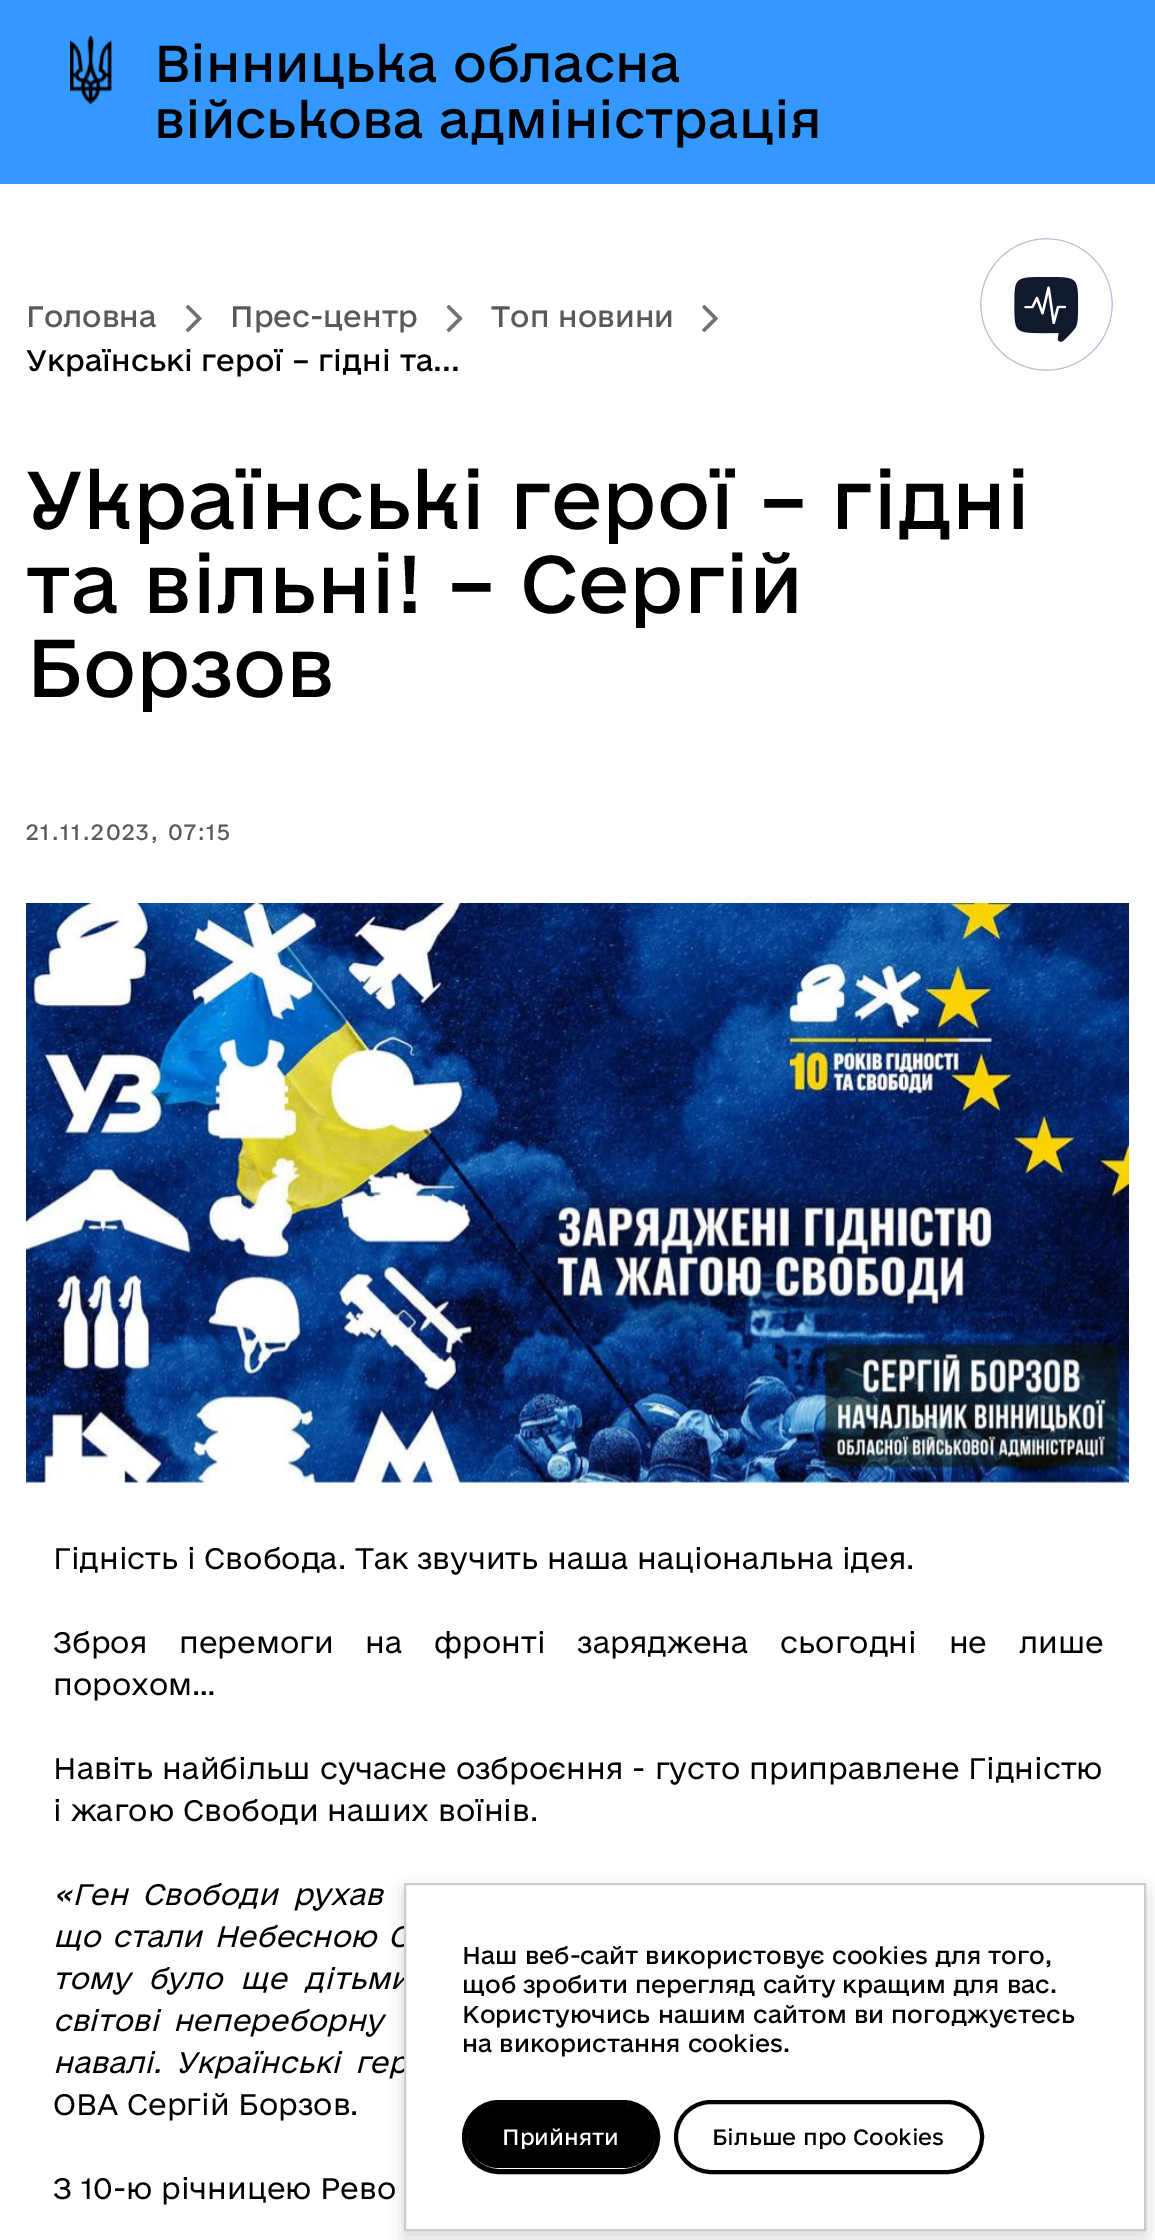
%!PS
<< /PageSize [1155 2240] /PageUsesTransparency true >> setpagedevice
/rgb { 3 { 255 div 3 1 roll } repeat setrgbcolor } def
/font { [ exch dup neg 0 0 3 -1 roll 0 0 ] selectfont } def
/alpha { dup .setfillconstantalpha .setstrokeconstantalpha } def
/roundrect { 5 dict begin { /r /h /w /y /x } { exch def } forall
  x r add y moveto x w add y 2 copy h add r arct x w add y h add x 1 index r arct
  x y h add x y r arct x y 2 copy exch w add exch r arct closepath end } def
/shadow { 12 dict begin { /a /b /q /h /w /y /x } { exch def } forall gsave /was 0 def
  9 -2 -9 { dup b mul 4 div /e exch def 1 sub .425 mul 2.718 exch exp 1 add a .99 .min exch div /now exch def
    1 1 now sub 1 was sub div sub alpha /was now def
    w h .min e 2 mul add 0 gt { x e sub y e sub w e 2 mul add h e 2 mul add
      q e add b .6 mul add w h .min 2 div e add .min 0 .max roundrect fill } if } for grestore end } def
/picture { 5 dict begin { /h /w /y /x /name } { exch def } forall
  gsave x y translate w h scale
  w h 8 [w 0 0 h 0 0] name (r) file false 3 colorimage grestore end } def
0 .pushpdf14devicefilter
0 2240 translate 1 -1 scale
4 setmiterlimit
255 255 255 rgb
0 0 1155 2240 rectfill
51 152 255 rgb
0 0 1155 184 rectfill
(img/1.rgb) 70 35 42 70 picture
(img/2.rgb) 185 304 17 29 picture
(img/3.rgb) 446 304 17 29 picture
(img/4.rgb) 702 304 16 29 picture
(img/5.rgb) 26 903 1103 580 picture
(img/6.rgb) 980 238 133 133 picture
0 0 0 rgb
404 1890 742 348 0 9 0.15 shadow
/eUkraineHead-Regular 49 font
154 82 moveto (Вінницька обласна) show
154 138 moveto (військова адміністрація) show
/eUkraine-Regular 28 font
89 89 89 rgb
[
  [(Головна) 26 327]
  [(Прес-центр) 230 327]
  [(Топ новини) 491 327]
] { aload pop moveto show } forall
0 0 0 rgb
26 371 moveto (Українські герої – гідні та...) show
/eUkraineHead-Regular 77 font
[
  [(Українські герої – гідні) 26 529]
  [(та вільні! – Сергій) 26 613]
  [(Борзов) 26 697]
] { aload pop moveto show } forall
/eUkraine-Regular 21 font
89 89 89 rgb
26 840 moveto 1.75 0 (21.11.2023, 07:15) ashow
/eUkraine-Light 28 font
0 0 0 rgb
53 1569 moveto (Гідність і Свобода. Так звучить наша національна ідея.) show
53 1653 moveto 23 0 32 (Зброя перемоги на фронті заряджена сьогодні не лише) widthshow
53 1695 moveto (порохом…) show
53 1779 moveto 0.5 0 32 (Навіть найбільш сучасне озброєння - густо приправлене Гідністю) widthshow
53 1821 moveto (і жагою Свободи наших воїнів.) show
/eUkraine-LightItalic 28 font
53 1905 moveto 6 0 32 («Ген Свободи рухав) widthshow
53 1947 moveto 3 0 32 (що стали Небесною С) widthshow
53 1989 moveto 9 0 32 (тому було ще дітьми) widthshow
53 2031 moveto 5 0 32 (світові непереборну) widthshow
53 2073 moveto (навалі.) show
175 2073 moveto 6 0 32 (Українські гер) widthshow
/eUkraine-Light 28 font
53 2115 moveto (ОВА Сергій Борзов.) show
53 2199 moveto (З 10-ю річницею Рево) show
255 255 255 rgb
405 1884 moveto 1145 1884 lineto 1145 2230 lineto 405 2230 lineto closepath gsave fill grestore
204 204 204 rgb
2 setlinewidth
stroke
/eUkraine-Regular 22.75 font
0 0 0 rgb
[
  [(Наш веб-сайт використовує cookies для того,) 462 1964]
  [(щоб зробити перегляд сайту кращим для вас.) 462 1993]
  [(Користуючись нашим сайтом ви погоджуєтесь) 462 2023]
  [(на використання cookies.) 462 2052]
] { aload pop moveto show } forall
467 2105 188 63 31.5 roundrect fill
5 setlinewidth
464.5 2102.5 193 69 34.5 roundrect stroke
/eUkraine-Regular 21 font
255 255 255 rgb
502 2145 moveto (Прийняти) show
0 0 0 rgb
4 setlinewidth
676 2102 306 70 35 roundrect stroke
712 2145 moveto (Більше про Cookies) show
.poppdf14devicefilter showpage
